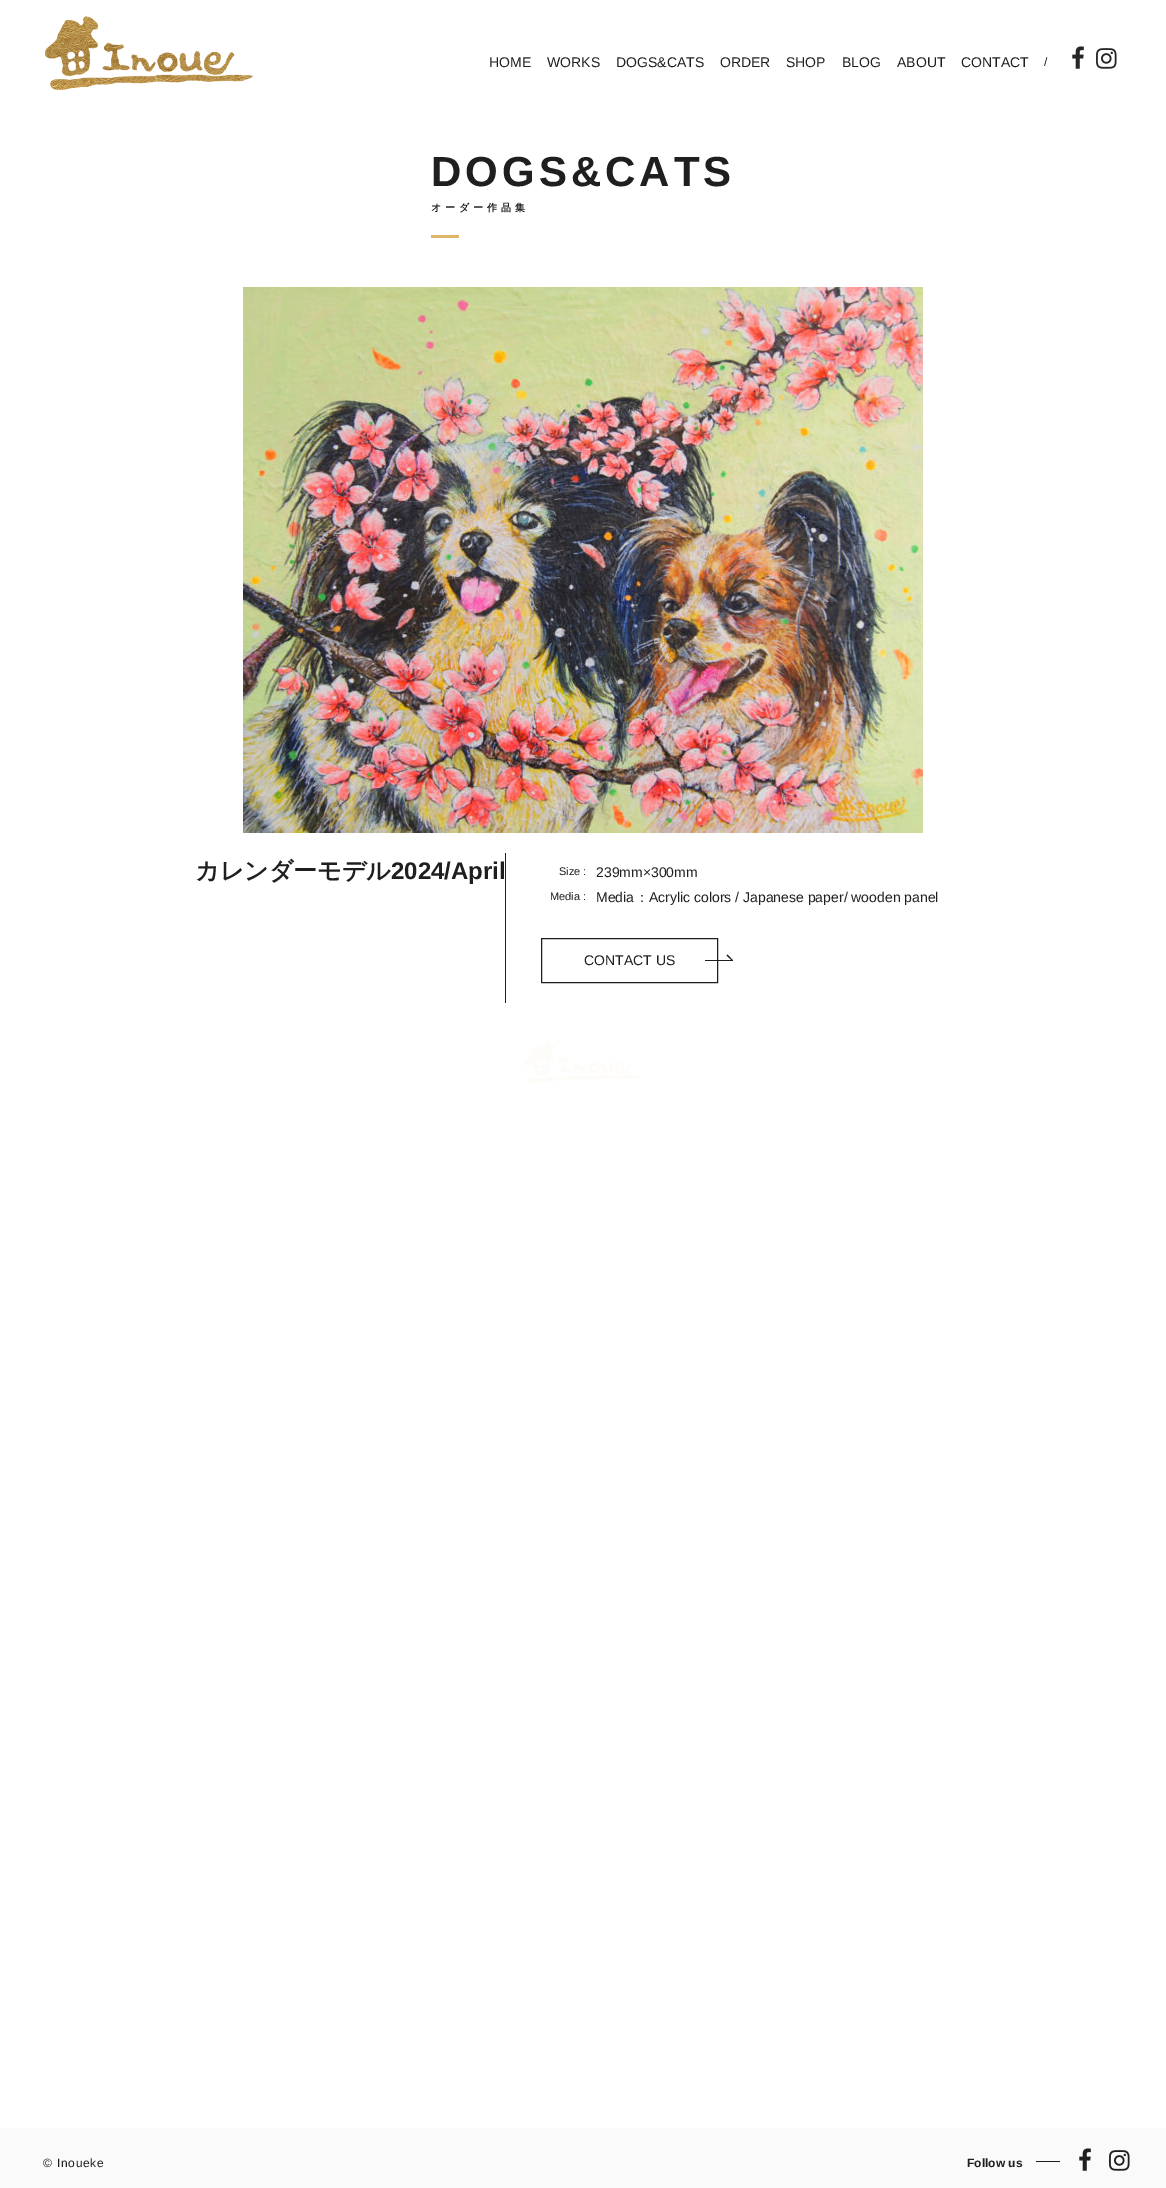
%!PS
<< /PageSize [1166 2188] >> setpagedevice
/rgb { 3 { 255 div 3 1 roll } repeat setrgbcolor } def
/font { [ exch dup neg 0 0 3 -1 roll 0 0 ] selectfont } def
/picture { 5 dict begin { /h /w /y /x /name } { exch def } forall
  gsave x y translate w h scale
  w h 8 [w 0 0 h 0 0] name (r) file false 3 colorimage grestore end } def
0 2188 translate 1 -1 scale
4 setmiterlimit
255 255 255 rgb
0 0 1166 2188 rectfill
(img/1.rgb) 45 16 208 74 picture
(img/2.rgb) 1072 46 12 23 picture
(img/3.rgb) 1096 48 21 21 picture
223 181 104 rgb
431 235 28 3 rectfill
(img/4.rgb) 243 287 680 546 picture
31 31 31 rgb
505 853 1 150 rectfill
541.5 938.5 176 44 rectstroke
705 960 28 1 rectfill
727.5 954.5 moveto 733 960.5 lineto 732.5 961 lineto 726.5 955.5 lineto closepath fill
250 250 250 rgb
0 2128 1166 60 rectfill
31 31 31 rgb
1036 2161 24 1 rectfill
(img/5.rgb) 1079 2148 12 23 picture
(img/6.rgb) 1109 2150 21 21 picture
(img/7.rgb) 524 1042 118 42 picture
/LiberationSans-Regular 14 font
[
  [(HOME) 489 67]
  [(WORKS) 547 67]
  [(DOGS&CATS) 616 67]
  [(ORDER) 720 67]
  [(SHOP) 786 67]
  [(BLOG) 842 67]
  [(ABOUT) 897 67]
  [(CONTACT) 961 67]
] { aload pop moveto show } forall
/LiberationSans-Regular 12 font
1044 66 moveto (/) show
/LiberationSans-Bold 42 font
431 186 moveto 4 0 (DOGS&CATS) ashow
/WenQuanYiZenHei-Bold 10 font
431 211 moveto 4 0 (オーダー作品集) ashow
/WenQuanYiZenHei-Bold 24 font
195 879 moveto (カレンダーモデル) show
/LiberationSans-Bold 24 font
391 879 moveto (2024/April) show
/LiberationSans-Regular 11 font
559 875 moveto (Size :) show
/LiberationSans-Regular 14 font
596 877 moveto (239mm×300mm) show
/LiberationSans-Regular 11 font
550 900 moveto (Media :) show
/LiberationSans-Regular 14 font
596 902 moveto (Media) show
/WenQuanYiZenHei-Medium 14 font
635 902 moveto (：) show
/LiberationSans-Regular 14 font
649 902 moveto (Acrylic colors / Japanese paper/ wooden panel) show
584 965 moveto (CONTACT US) show
/LiberationSans-Regular 12 font
43 2167 moveto 0.75 0 (© Inoueke) ashow
/LiberationSans-Bold 12 font
967 2167 moveto (Follow us) show
showpage
